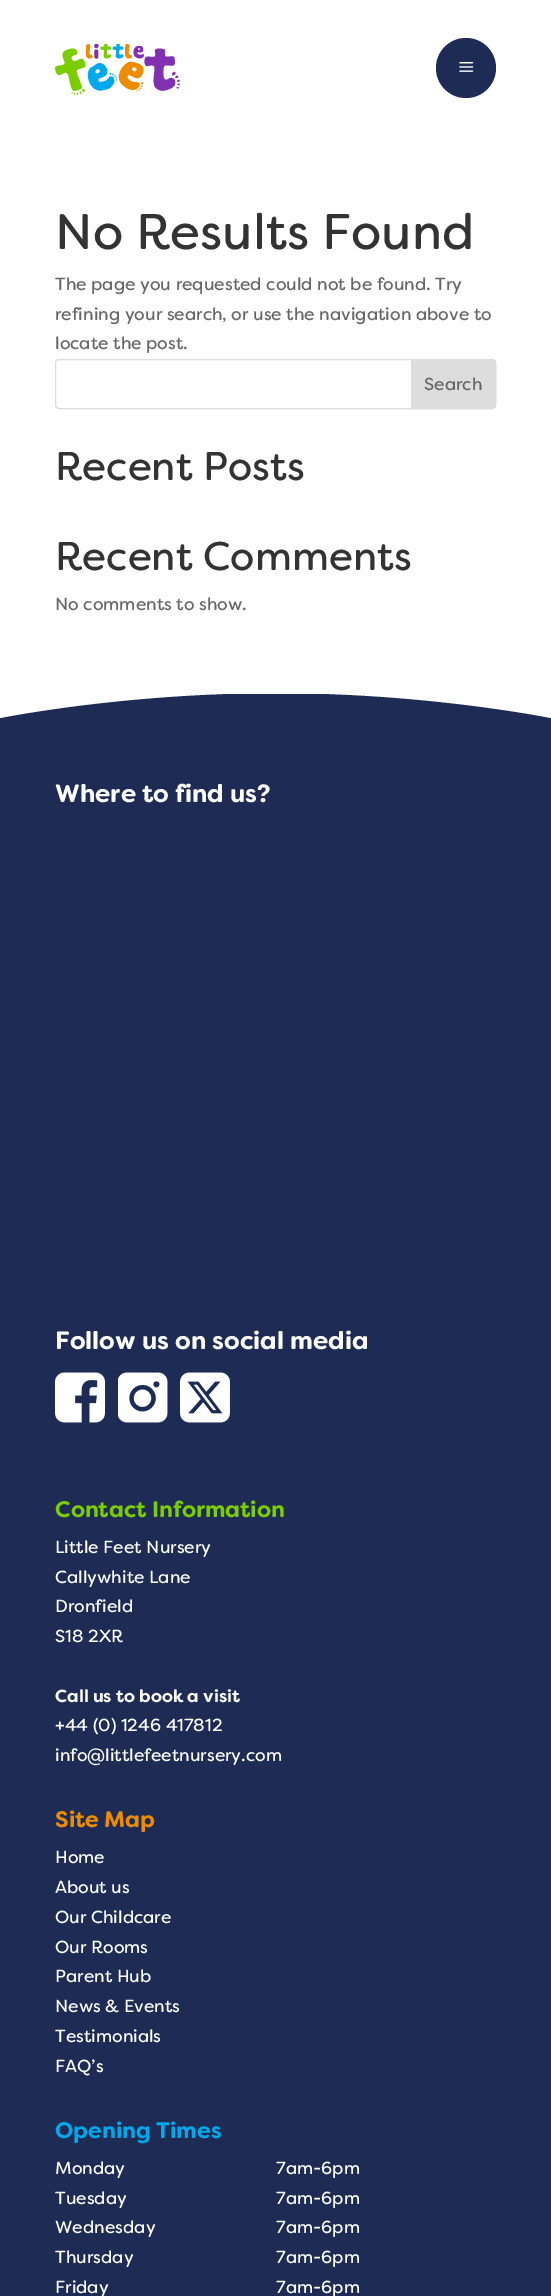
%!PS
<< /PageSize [551 2296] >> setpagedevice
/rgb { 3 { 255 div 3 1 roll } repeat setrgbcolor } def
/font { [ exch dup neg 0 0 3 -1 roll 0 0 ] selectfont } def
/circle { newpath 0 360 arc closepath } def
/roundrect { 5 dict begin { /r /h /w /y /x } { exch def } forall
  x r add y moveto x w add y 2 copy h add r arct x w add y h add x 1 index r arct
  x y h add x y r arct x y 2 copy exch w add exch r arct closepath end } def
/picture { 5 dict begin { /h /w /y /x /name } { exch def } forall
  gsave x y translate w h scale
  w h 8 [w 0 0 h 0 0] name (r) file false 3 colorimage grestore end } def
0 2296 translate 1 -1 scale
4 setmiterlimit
255 255 255 rgb
0 0 551 2296 rectfill
(img/1.rgb) 55 44 125 51 picture
30 44 85 rgb
466 68 30 circle fill
(img/2.rgb) 459 62 15 10 picture
221 221 221 rgb
55.5 359.5 440 49 3.5 roundrect stroke
411.5 359.5 moveto 492 359.5 lineto 494 359.5 495.5 361 495.5 363 curveto 495.5 405 lineto 495.5 407 494 408.5 492 408.5 curveto 411.5 408.5 lineto closepath gsave fill grestore
stroke
30 44 85 rgb
0 694 551 1602 rectfill
gsave
0 694 551 25 rectclip
255 255 255 rgb
551 693 moveto 551 718 lineto 551 718 428 693 276 693 curveto 123 693 0 718 0 718 curveto 0 693 lineto closepath fill
grestore
(img/3.rgb) 55 1372 50 51 picture
(img/4.rgb) 118 1372 50 51 picture
(img/5.rgb) 180 1372 50 51 picture
/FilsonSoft-Regular 50 font
51 51 51 rgb
55 249 moveto (No Results Found) show
/FilsonSoft-Regular 17.5 font
102 102 102 rgb
[
  [(The page you requested could not be found. Try) 55 290]
  [(refining your search, or use the navigation above to) 55 320]
  [(locate the post.) 55 349]
  [(Search) 424 390]
] { aload pop moveto show } forall
/FilsonSoft-Regular 40 font
51 51 51 rgb
55 480 moveto (Recent Posts) show
55 570 moveto (Recent Comments) show
/FilsonSoft-Regular 17.5 font
102 102 102 rgb
55 610 moveto (No comments to show.) show
/FilsonSoft-Bold 25 font
255 255 255 rgb
55 802 moveto (Where to find us?) show
55 1349 moveto (Follow us on social media) show
/FilsonSoft-Bold 22.5 font
123 205 0 rgb
55 1517 moveto (Contact Information) show
/FilsonSoft-Regular 17.5 font
255 255 255 rgb
[
  [(Little Feet Nursery) 55 1553]
  [(Callywhite Lane) 55 1583]
  [(Dronfield) 55 1612]
  [(S18 2XR) 55 1642]
] { aload pop moveto show } forall
/FilsonSoft-Bold 17.5 font
55 1702 moveto (Call us to book a visit) show
/FilsonSoft-Regular 17.5 font
55 1731 moveto (+44 \(0\) 1246 417812) show
55 1761 moveto (info@littlefeetnursery.com) show
/FilsonSoft-Bold 22.5 font
237 140 0 rgb
55 1827 moveto (Site Map) show
/FilsonSoft-Regular 17.5 font
255 255 255 rgb
[
  [(Home) 55 1863]
  [(About us) 55 1893]
  [(Our Childcare) 55 1923]
  [(Our Rooms) 55 1953]
  [(Parent Hub) 55 1982]
  [(News & Events) 55 2012]
  [(Testimonials) 55 2042]
  [(FAQ’s) 55 2072]
] { aload pop moveto show } forall
/FilsonSoft-Bold 22.5 font
0 169 235 rgb
55 2138 moveto (Opening Times) show
/FilsonSoft-Regular 17.5 font
255 255 255 rgb
[
  [(Monday) 55 2174]
  [(7am-6pm) 276 2174]
  [(Tuesday) 55 2204]
  [(7am-6pm) 276 2204]
  [(Wednesday) 55 2233]
  [(7am-6pm) 276 2233]
  [(Thursday) 55 2263]
  [(7am-6pm) 276 2263]
  [(Friday) 55 2293]
  [(7am-6pm) 276 2293]
] { aload pop moveto show } forall
showpage
